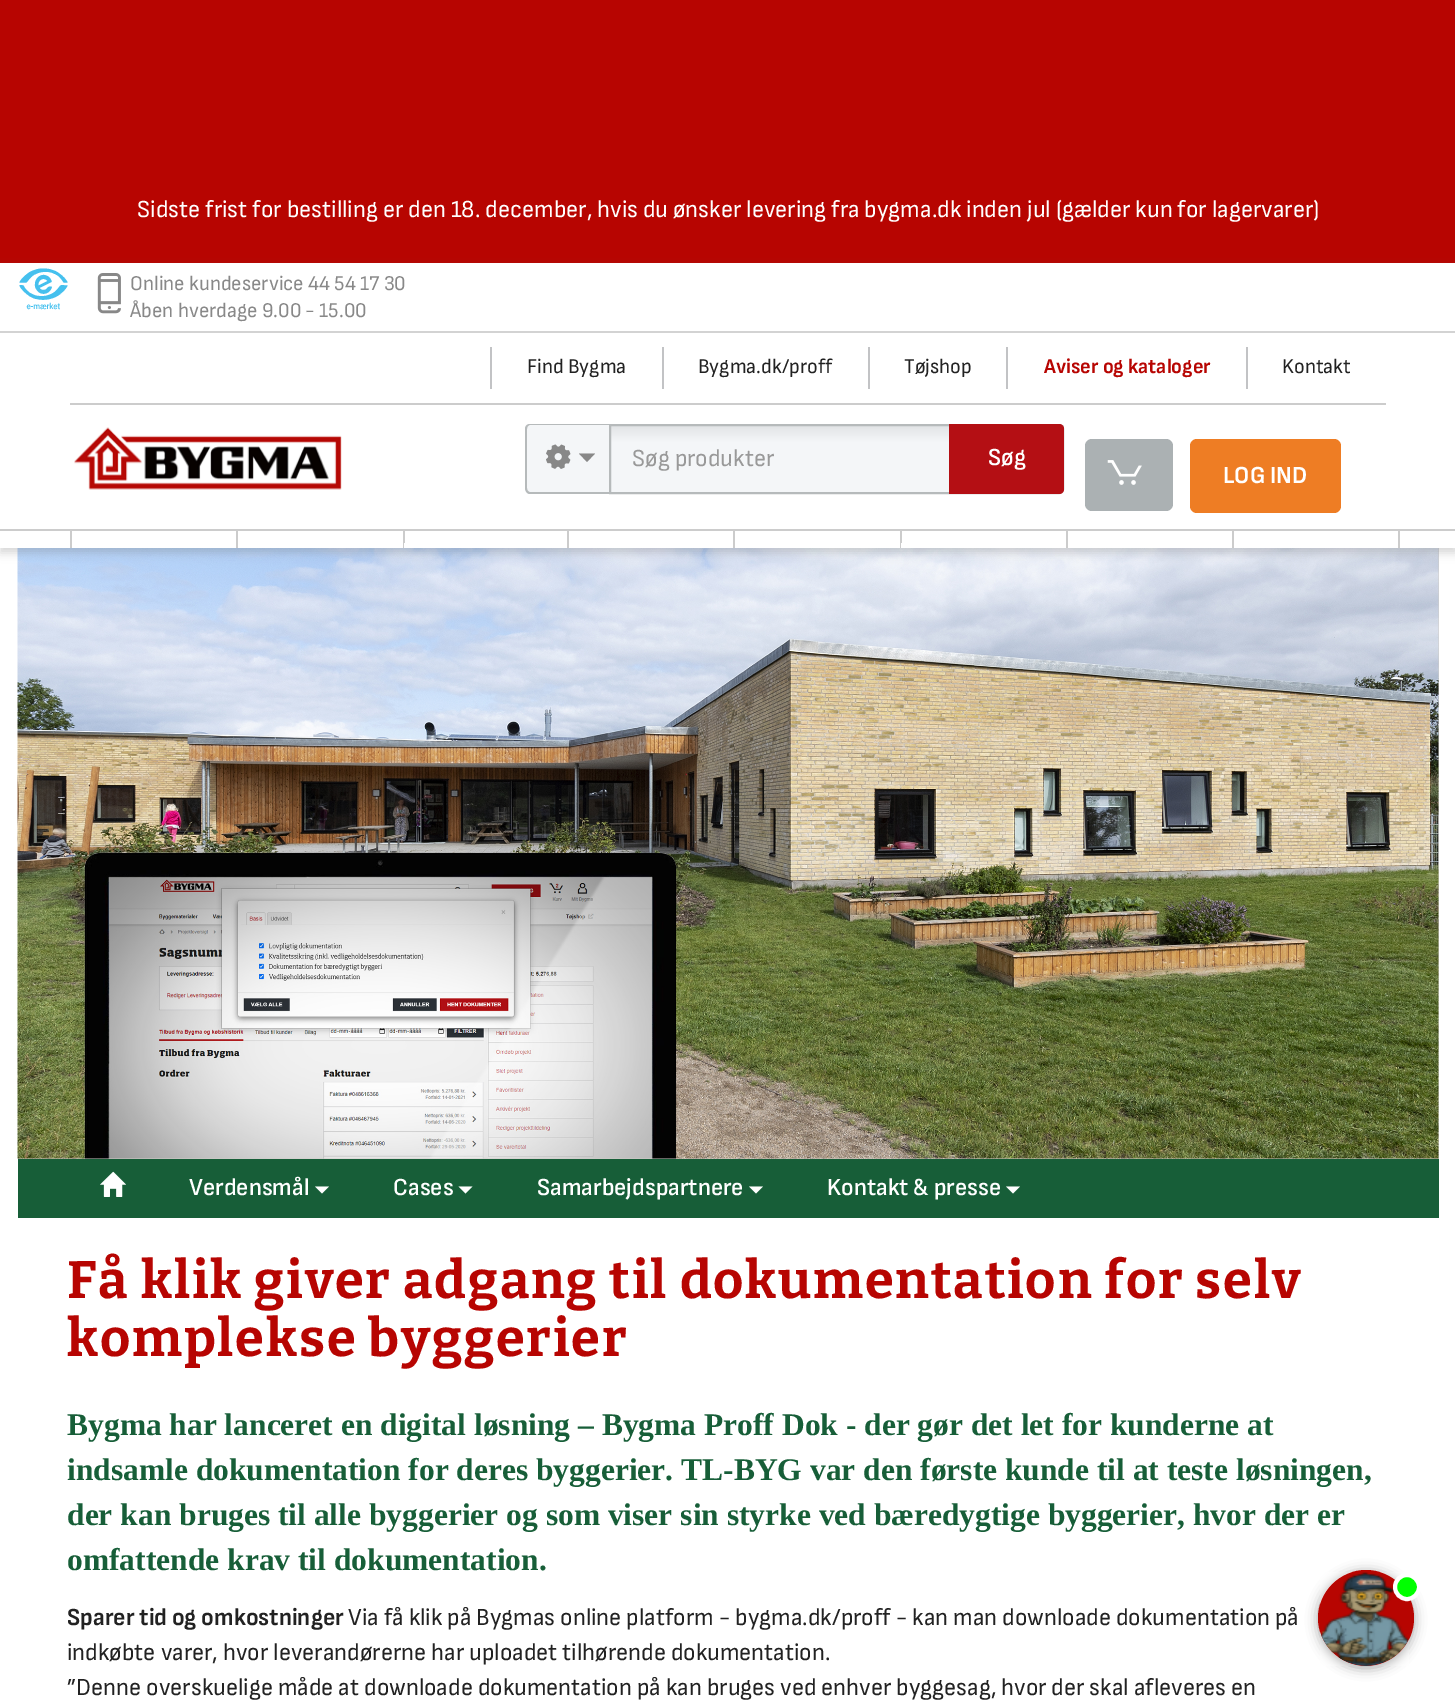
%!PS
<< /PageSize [1455 1700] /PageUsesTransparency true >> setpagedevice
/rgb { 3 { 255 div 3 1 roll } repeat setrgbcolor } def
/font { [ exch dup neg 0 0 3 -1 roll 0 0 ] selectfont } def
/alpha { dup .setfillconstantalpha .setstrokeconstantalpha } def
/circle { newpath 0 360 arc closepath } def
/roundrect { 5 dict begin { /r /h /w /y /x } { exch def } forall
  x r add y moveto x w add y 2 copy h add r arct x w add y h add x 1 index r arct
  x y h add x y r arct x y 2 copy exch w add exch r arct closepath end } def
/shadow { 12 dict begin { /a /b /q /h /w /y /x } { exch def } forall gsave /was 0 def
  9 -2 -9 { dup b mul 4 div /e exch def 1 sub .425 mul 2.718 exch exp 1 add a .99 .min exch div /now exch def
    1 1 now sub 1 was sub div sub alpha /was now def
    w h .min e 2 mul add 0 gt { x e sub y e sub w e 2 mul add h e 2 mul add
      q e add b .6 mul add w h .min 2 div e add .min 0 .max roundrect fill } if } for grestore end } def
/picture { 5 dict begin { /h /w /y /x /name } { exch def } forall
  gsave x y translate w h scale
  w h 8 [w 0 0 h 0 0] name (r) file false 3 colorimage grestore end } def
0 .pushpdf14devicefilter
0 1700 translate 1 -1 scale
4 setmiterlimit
255 255 255 rgb
0 0 1455 1700 rectfill
183 5 1 rgb
0 0 1455 263 rectfill
117 117 117 rgb
0 268 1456 131 0 4.5 0.3 shadow
208 205 200 rgb
18 548 1421 611 rectfill
(img/5.rgb) 17 548 1422 611 picture
117 117 117 rgb
0 466 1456 87 0 4.5 0.3 shadow
[
  [0 531 1455 17 255 255 255]
  [236 531 2 17 204 204 204]
  [70 531 2 17 204 204 204]
  [403 531 2 17 204 204 204]
  [567 531 2 17 204 204 204]
  [404 543 1 5 255 255 255]
  [733 531 2 17 204 204 204]
  [900 531 2 17 204 204 204]
  [1066 531 2 17 204 204 204]
  [901 543 1 5 255 255 255]
  [1232 531 2 17 204 204 204]
  [1398 531 2 17 204 204 204]
  [0 263 1455 266 255 255 255]
  [0 529 1455 2 204 204 204]
  [0 331 1455 2 211 211 211]
] { aload pop rgb rectfill } forall
(img/1.rgb) 97 273 24 41 picture
[
  [70 403 1316 2 204 204 204]
  [490 347 2 42 194 195 197]
  [662 347 2 42 194 195 197]
  [868 347 2 42 194 195 197]
  [1006 347 2 42 194 195 197]
  [1246 347 2 42 194 195 197]
] { aload pop rgb rectfill } forall
(img/2.rgb) 74 427 268 63 picture
244 246 248 rgb
530 424 moveto 609 424 lineto 609 494 lineto 530 494 lineto 527 494 525 492 525 489 curveto 525 429 lineto 525 426 527 424 530 424 curveto closepath fill
182 186 187 rgb
530 424 moveto 609 424 lineto 609 494 lineto 530 494 lineto 527 494 525 491 525 488 curveto 525 429 lineto 525 426 527 424 530 424 curveto closepath 530 425 moveto 609 425 lineto 609 492 lineto 530 492 lineto 528 492 527 490 527 488 curveto 527 429 lineto 527 427 528 425 530 425 curveto closepath eofill
(img/3.rgb) 546 444 25 25 picture
136 136 136 rgb
579 453.5 moveto 595 453.5 lineto 587 462 lineto closepath fill
gsave
609 424 moveto 1059 424 lineto 1062 424 1064 426 1064 429 curveto 1064 489 lineto 1064 492 1062 494 1059 494 curveto 609 494 lineto closepath clip newpath
gsave 611 425 moveto 1064 425 lineto 1064 492 lineto 611 492 lineto closepath clip newpath
<< /ShadingType 2 /ColorSpace /DeviceRGB /Coords [837 425 837 492] /Extend [true true] /Function << /FunctionType 3 /Domain [0 1] /Functions [<< /FunctionType 2 /Domain [0 1] /C0 [0.882 0.89 0.898] /C1 [0.957 0.965 0.973] /N 1 >> << /FunctionType 2 /Domain [0 1] /C0 [0.957 0.965 0.973] /C1 [0.957 0.965 0.973] /N 1 >>] /Bounds [0.25] /Encode [0 1 0 1] >> >> shfill grestore
grestore
182 186 187 rgb
2 setlinewidth
610 425 moveto 1059 425 lineto 1061 425 1063 427 1063 429 curveto 1063 489 lineto 1063 491 1061 493 1059 493 curveto 610 493 lineto closepath stroke
180 15 20 rgb
949 424 moveto 1059 424 lineto 1062 424 1064 426 1064 429 curveto 1064 489 lineto 1064 492 1062 494 1059 494 curveto 949 494 lineto closepath fill
171 177 179 rgb
1085 439 88 72 7 roundrect fill
(img/4.rgb) 1107 460 35 25 picture
238 125 36 rgb
1190 439 151 74 7 roundrect fill
23 94 56 rgb
18 1159 1421 59 rectfill
(img/6.rgb) 100 1171 26 26 picture
255 255 255 rgb
315 1186.5 moveto 329 1186.5 lineto 322 1193.5 lineto closepath fill
458.5 1186.5 moveto 472.5 1186.5 lineto 465.5 1193.5 lineto closepath fill
749 1186.5 moveto 763 1186.5 lineto 756 1193.5 lineto closepath fill
1006 1186.5 moveto 1020 1186.5 lineto 1013 1193.5 lineto closepath fill
0 0 0 rgb
1318 1572 96 96 48 6 0.35 shadow
183 5 1 rgb
1366 1618 48 circle fill
(img/7.rgb) 1320 1572 89 94 picture
0 255 0 rgb
1407 1587 12 circle gsave fill grestore
255 255 255 rgb
4 setlinewidth
stroke
/SofiaSansSemiCondensed-Regular 24.5 font
137 217 moveto (Sidste frist for bestilling er den 18. december, hvis du ønsker levering fra bygma.dk inden jul \(gælder kun for lagervarer\)) show
/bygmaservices-Regular 63 font
69 192 238 rgb
18 313 moveto (M) show
/SofiaSansSemiCondensed-Regular 21 font
136 136 136 rgb
130 290 moveto (Online kundeservice 44 54 17 30) show
130 317 moveto (Åben hverdage 9.00 - 15.00) show
34 34 34 rgb
[
  [(Find Bygma) 527 373]
  [(Bygma.dk/proff) 698 373]
  [(Tøjshop) 904 373]
] { aload pop moveto show } forall
/SofiaSansSemiCondensed-Bold 21 font
183 5 2 rgb
1044 373 moveto (Aviser og kataloger) show
/SofiaSansSemiCondensed-Regular 21 font
34 34 34 rgb
1282 373 moveto (Kontakt) show
/SofiaSansSemiCondensed-Regular 24.5 font
153 153 153 rgb
632 466 moveto (Søg produkter) show
/SofiaSansSemiCondensed-SemiBold 24.5 font
255 255 255 rgb
988 465 moveto (Søg) show
/SofiaSansSemiCondensed-Bold 24.5 font
1223 483 moveto (LOG IND) show
/SofiaSansSemiCondensed-SemiBold 24.5 font
[
  [(Verdensmål) 189 1195]
  [(Cases) 393 1195]
  [(Samarbejdspartnere) 537 1195]
  [(Kontakt & presse) 827 1195]
] { aload pop moveto show } forall
/Bitter-Bold 52.5 font
183 5 2 rgb
67 1298 moveto 1.75 0 (Få klik giver adgang til dokumentation for selv) ashow
67 1356 moveto 1.75 0 (komplekse byggerier) ashow
/LiberationSerif-Bold 31.5 font
23 94 56 rgb
[
  [(Bygma har lanceret en digital løsning – Bygma Proff Dok - der gør det let for kunderne at) 67 1435]
  [(indsamle dokumentation for deres byggerier. TL-BYG var den første kunde til at teste løsningen,) 67 1480]
  [(der kan bruges til alle byggerier og som viser sin styrke ved bæredygtige byggerier, hvor der er) 67 1525]
  [(omfattende krav til dokumentation.) 67 1570]
] { aload pop moveto show } forall
/SofiaSansSemiCondensed-Bold 24.5 font
34 34 34 rgb
67 1625 moveto (Sparer tid og omkostninger) show
/SofiaSansSemiCondensed-Regular 24.5 font
[
  [(Via få klik på Bygmas online platform - bygma.dk/proff - kan man downloade dokumentation på) 348 1625]
  [(indkøbte varer, hvor leverandørerne har uploadet tilhørende dokumentation.) 67 1660]
  [(”Denne overskuelige måde at downloade dokumentation på kan bruges ved enhver byggesag, hvor der skal afleveres en) 67 1695]
] { aload pop moveto show } forall
.poppdf14devicefilter showpage
